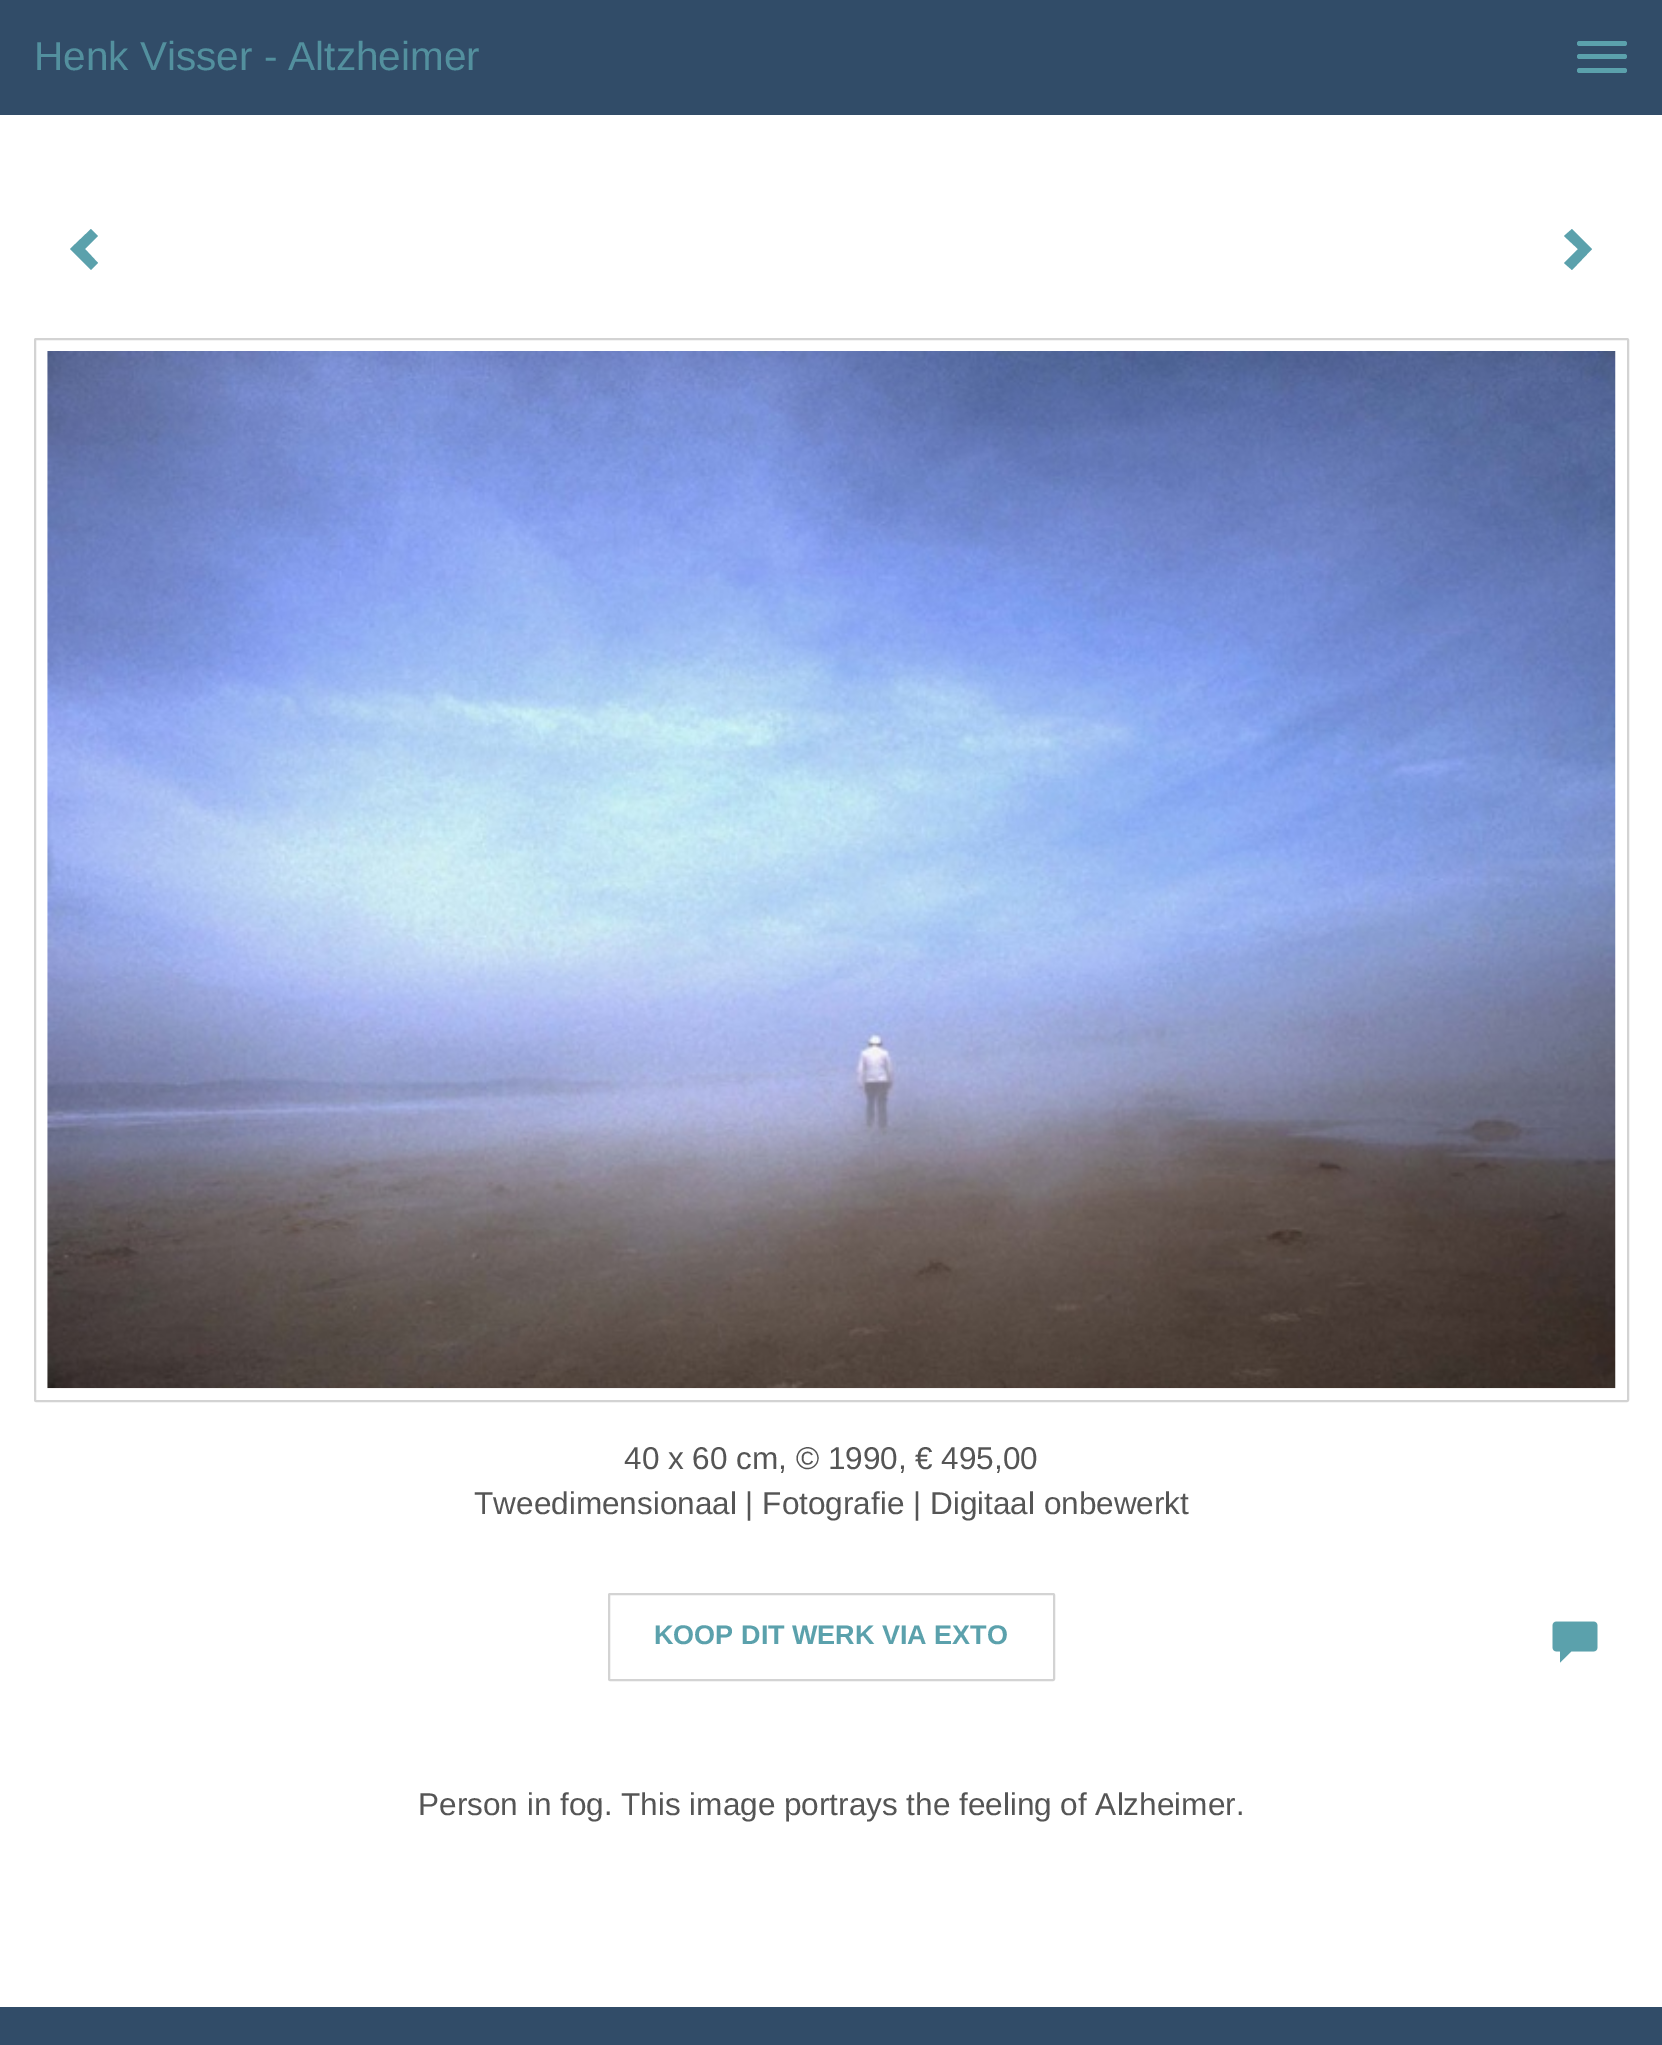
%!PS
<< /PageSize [1662 2045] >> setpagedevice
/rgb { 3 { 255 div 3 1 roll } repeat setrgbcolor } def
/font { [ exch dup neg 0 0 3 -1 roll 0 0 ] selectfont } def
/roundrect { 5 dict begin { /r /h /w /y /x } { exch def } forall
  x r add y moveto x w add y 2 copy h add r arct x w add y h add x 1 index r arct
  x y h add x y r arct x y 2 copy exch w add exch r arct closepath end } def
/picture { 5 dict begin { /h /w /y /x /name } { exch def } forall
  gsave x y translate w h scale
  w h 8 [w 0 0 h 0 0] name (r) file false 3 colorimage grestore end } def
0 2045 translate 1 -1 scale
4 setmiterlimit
49 76 104 rgb
0 0 1662 2045 rectfill
91 161 172 rgb
1577 41 50 5 2.5 roundrect fill
1577 54 50 5 2.5 roundrect fill
1577 68 50 5 2.5 roundrect fill
255 255 255 rgb
0 115 1662 1892 rectfill
91 161 172 rgb
98 236 moveto 85 249 lineto 98 263 lineto 91 270 lineto 70 249 lineto 91 229 lineto closepath fill
1592 249 moveto 1572 270 lineto 1564 263 lineto 1578 249 lineto 1564 236 lineto 1572 229 lineto closepath fill
211 211 211 rgb
2 setlinewidth
35 339 1593 1062 1 roundrect stroke
(img/1.rgb) 47 351 1569 1038 picture
609 1594 445 86 1 roundrect stroke
(img/2.rgb) 1552 1621 46 42 picture
/LiberationSans-Regular 40.5 font
83 144 158 rgb
34 70 moveto (Henk Visser - Altzheimer) show
/LiberationSans-Regular 31.5 font
85 85 85 rgb
624 1469 moveto (40 x 60 cm, © 1990, € 495,00) show
474 1514 moveto (Tweedimensionaal | Fotografie | Digitaal onbewerkt) show
/LiberationSans-Bold 27 font
91 161 172 rgb
654 1644 moveto (KOOP DIT WERK VIA EXTO) show
/LiberationSans-Regular 31.5 font
85 85 85 rgb
418 1815 moveto (Person in fog. This image portrays the feeling of Alzheimer.) show
showpage
